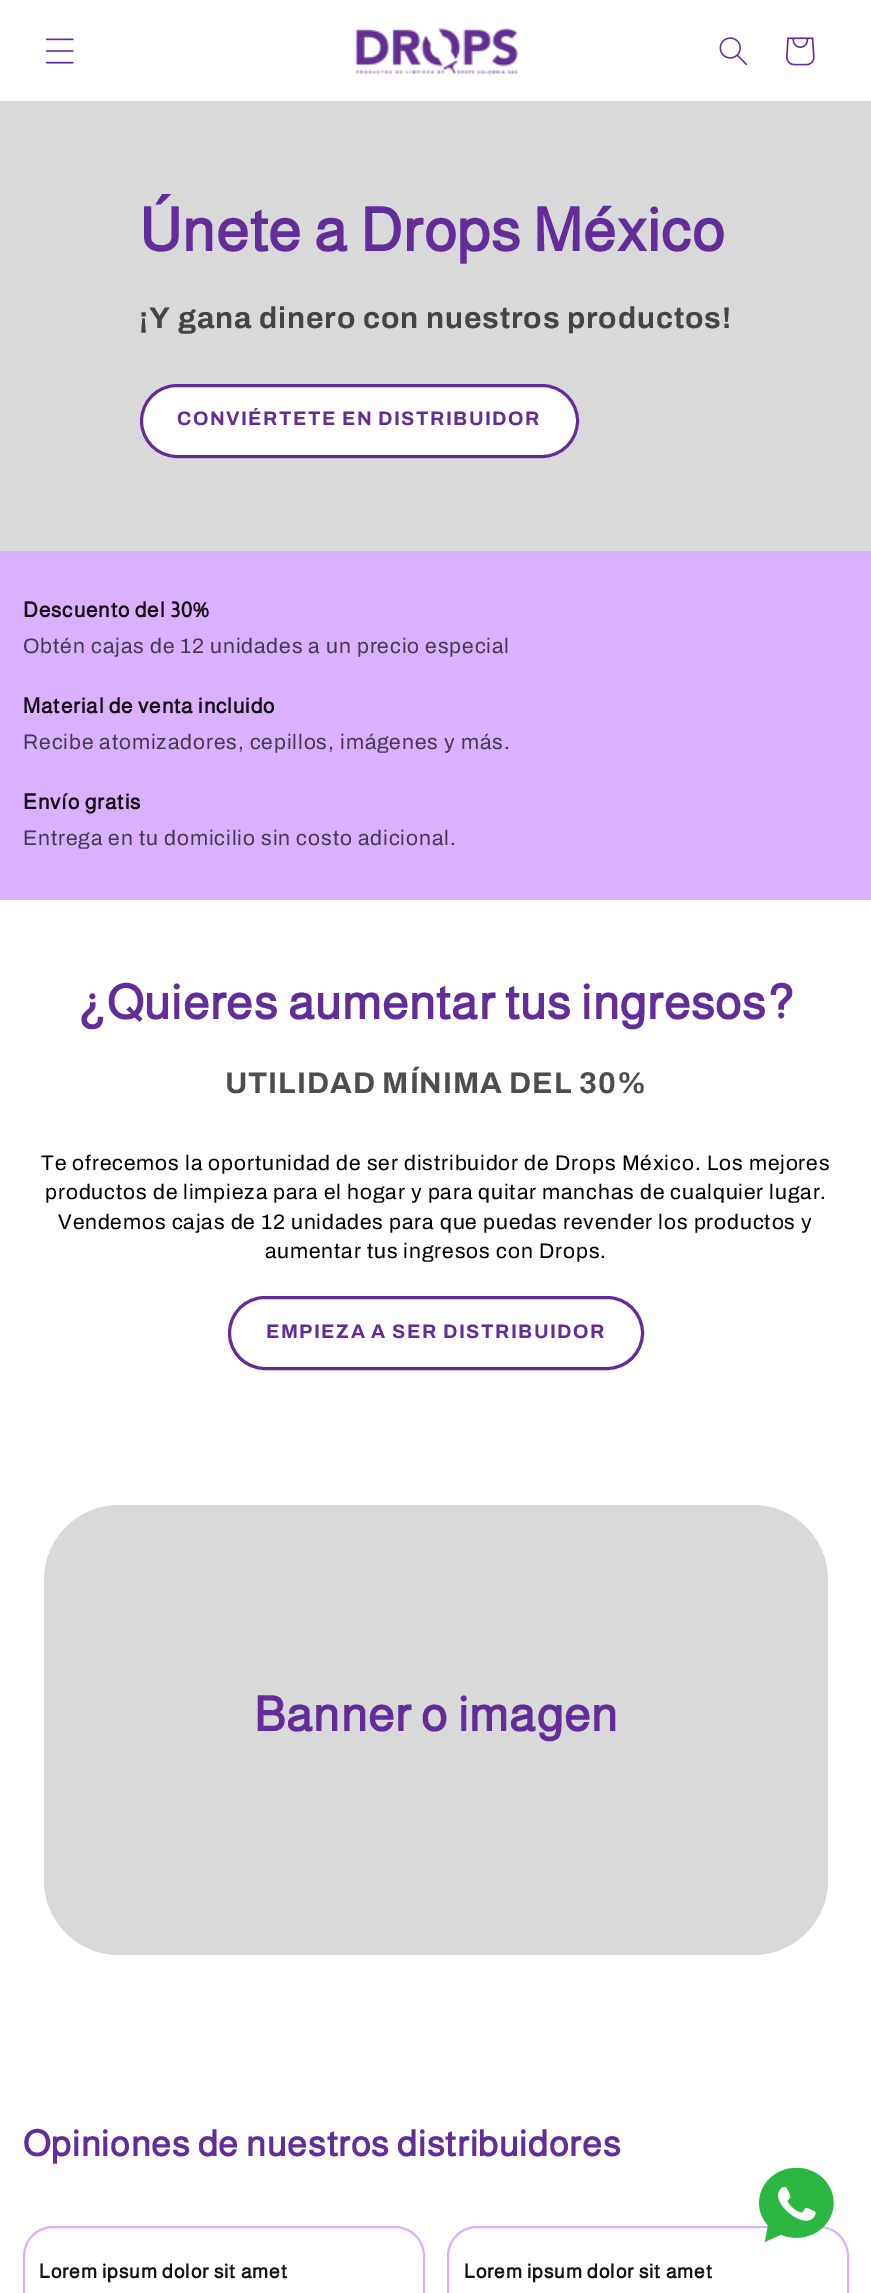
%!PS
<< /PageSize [871 2293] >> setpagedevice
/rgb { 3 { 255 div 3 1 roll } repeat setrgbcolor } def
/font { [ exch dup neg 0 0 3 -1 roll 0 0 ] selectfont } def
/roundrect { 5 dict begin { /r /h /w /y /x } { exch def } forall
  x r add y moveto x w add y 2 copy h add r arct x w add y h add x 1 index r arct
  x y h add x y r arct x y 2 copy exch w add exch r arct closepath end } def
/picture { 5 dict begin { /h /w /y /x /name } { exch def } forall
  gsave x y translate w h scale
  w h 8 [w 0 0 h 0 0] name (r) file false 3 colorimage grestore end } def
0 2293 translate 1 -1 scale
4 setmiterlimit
255 255 255 rgb
0 0 871 2293 rectfill
(img/1.rgb) 45 38 29 26 picture
(img/2.rgb) 355 28 163 47 picture
(img/3.rgb) 719 37 28 28 picture
(img/4.rgb) 786 37 29 29 picture
217 217 217 rgb
0 101 871 450 rectfill
255 255 255 rgb
140 384 439 74 37 roundrect fill
3 setlinewidth
141.5 385.5 436 71 35.5 roundrect stroke
98 44 153 rgb
141.5 385.5 436 71 35.5 roundrect stroke
219 177 255 rgb
0 551 871 349 rectfill
98 44 153 rgb
229.5 1297.5 413 71 35.5 roundrect stroke
217 217 217 rgb
44 1505 784 450 75 roundrect fill
219 177 255 rgb
2 setlinewidth
24 2227 400 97 29 roundrect stroke
448 2227 400 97 29 roundrect stroke
(img/5.rgb) 759 2168 75 74 picture
/Almarai-Bold 60 font
98 44 153 rgb
139 251 moveto 0.9 0 (Únete a Drops México) ashow
/Archivo-Bold 30 font
68 68 68 rgb
139 328 moveto 0.9 0 (¡Y gana dinero con nuestros productos!) ashow
/Archivo-Bold 19.5 font
98 44 153 rgb
177 425 moveto 1.5 0 (CONVIÉRTETE EN DISTRIBUIDOR) ashow
/Almarai-Bold 21 font
18 18 18 rgb
23 617 moveto 0.9 0 (Descuento del 30%) ashow
/Archivo-Regular 21 font
68 58 77 rgb
23 653 moveto 0.9 0 (Obtén cajas de 12 unidades a un precio especial) ashow
/Almarai-Bold 21 font
18 18 18 rgb
23 713 moveto 0.9 0 (Material de venta incluido) ashow
/Archivo-Regular 21 font
68 58 77 rgb
23 749 moveto 0.9 0 (Recibe atomizadores, cepillos, imágenes y más.) ashow
/Almarai-Bold 21 font
18 18 18 rgb
23 809 moveto 0.9 0 (Envío gratis) ashow
/Archivo-Regular 21 font
68 58 77 rgb
23 845 moveto 0.9 0 (Entrega en tu domicilio sin costo adicional.) ashow
/Almarai-Bold 48 font
98 44 153 rgb
77 1019 moveto 0.9 0 (¿Quieres aumentar tus ingresos?) ashow
/Archivo-Bold 30 font
77 77 77 rgb
225 1093 moveto 0.9 0 (UTILIDAD MÍNIMA DEL 30%) ashow
/Archivo-Regular 21 font
0 0 0 rgb
41 1170 moveto 0.9 0 (Te ofrecemos la oportunidad de ser distribuidor de Drops México. Los mejores) ashow
45 1199 moveto 0.9 0 (productos de limpieza para el hogar y para quitar manchas de cualquier lugar.) ashow
58 1229 moveto 0.9 0 (Vendemos cajas de 12 unidades para que puedas revender los productos y) ashow
265 1258 moveto 0.9 0 (aumentar tus ingresos con Drops.) ashow
/Archivo-Bold 19.5 font
98 44 153 rgb
266 1338 moveto 1.5 0 (EMPIEZA A SER DISTRIBUIDOR) ashow
/Almarai-Bold 48 font
254 1731 moveto 0.9 0 (Banner o imagen) ashow
/Almarai-Bold 36 font
23 2156 moveto 0.9 0 (Opiniones de nuestros distribuidores) ashow
/Almarai-Bold 19.5 font
18 18 18 rgb
39 2278 moveto 0.9 0 (Lorem ipsum dolor sit amet) ashow
464 2278 moveto 0.9 0 (Lorem ipsum dolor sit amet) ashow
showpage
